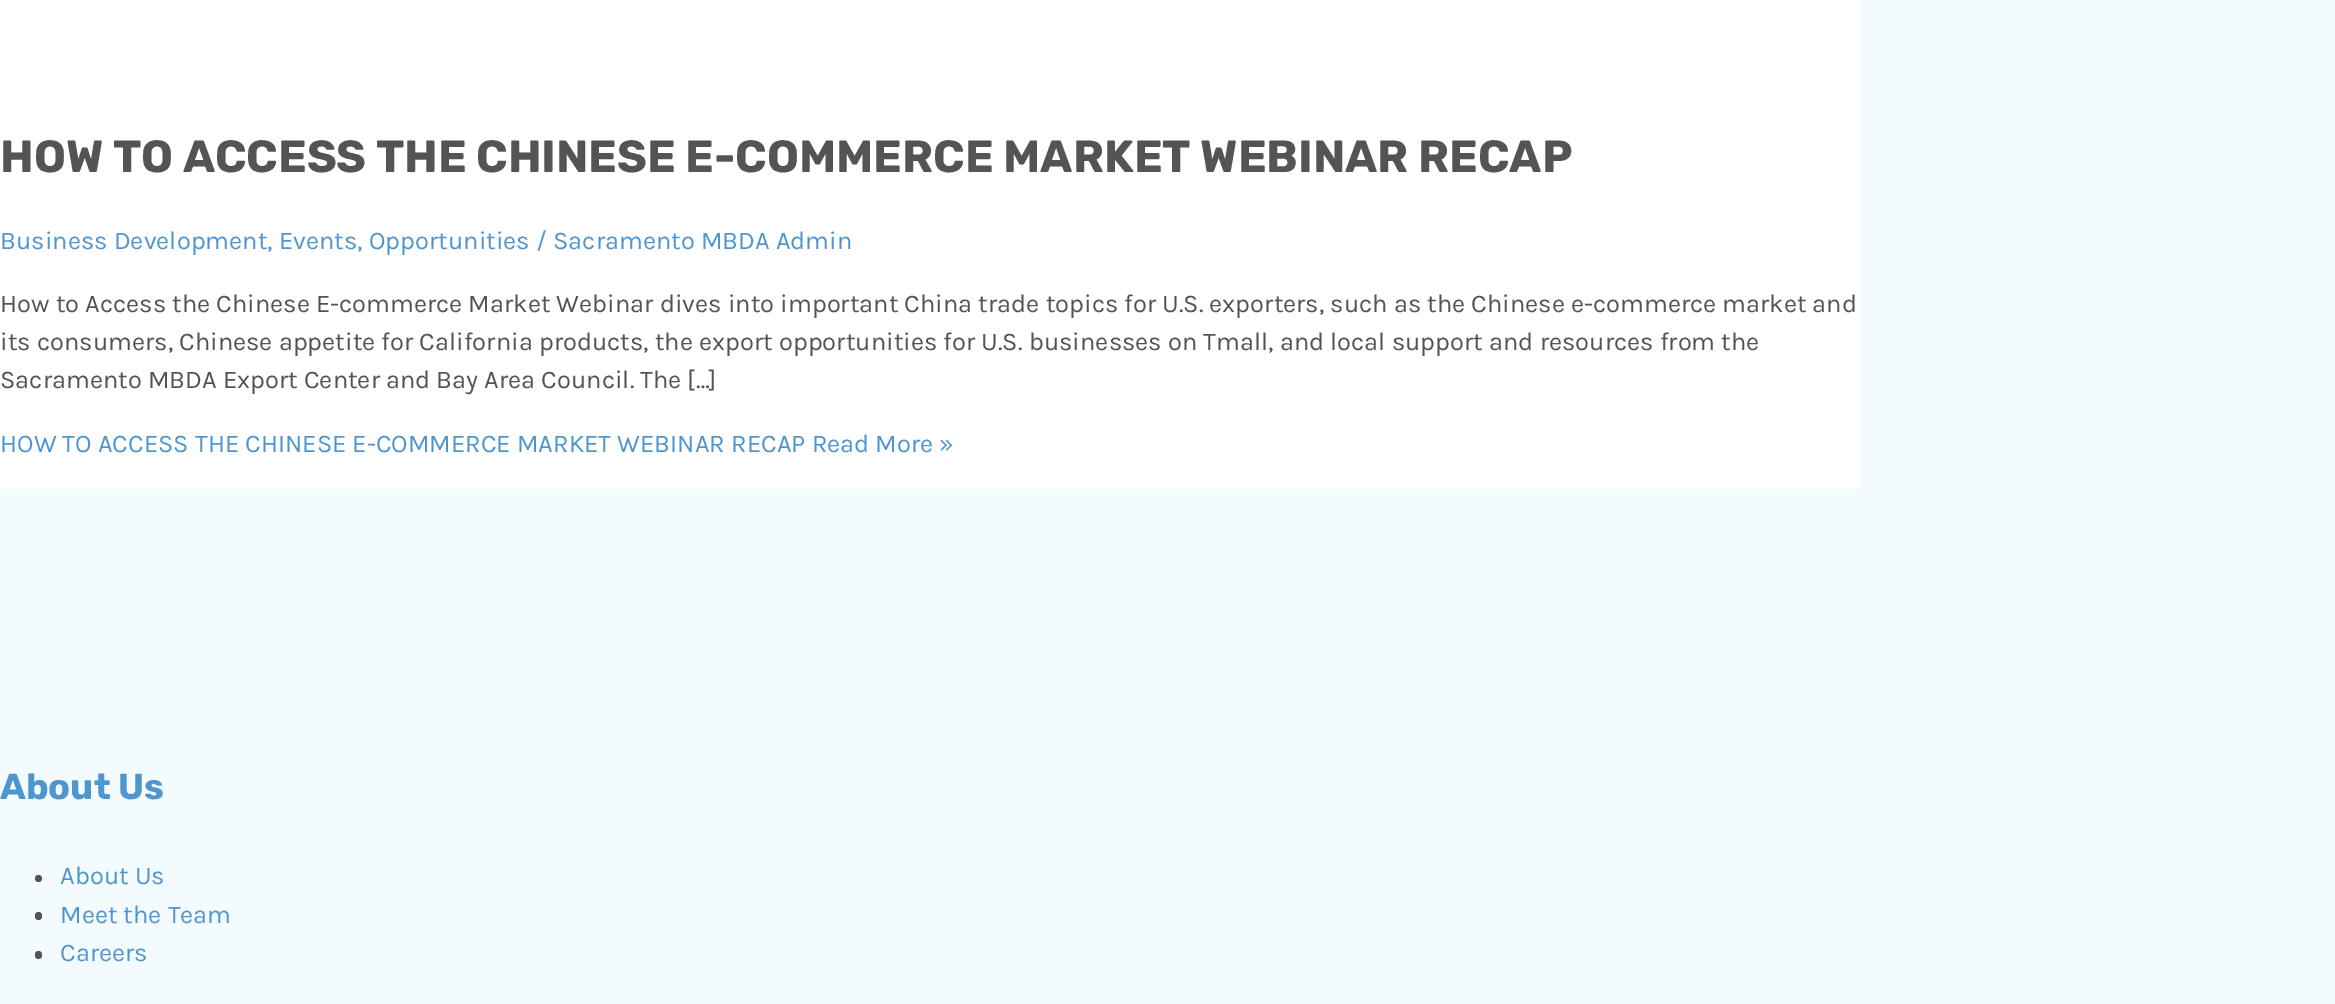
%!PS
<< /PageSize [2335 1004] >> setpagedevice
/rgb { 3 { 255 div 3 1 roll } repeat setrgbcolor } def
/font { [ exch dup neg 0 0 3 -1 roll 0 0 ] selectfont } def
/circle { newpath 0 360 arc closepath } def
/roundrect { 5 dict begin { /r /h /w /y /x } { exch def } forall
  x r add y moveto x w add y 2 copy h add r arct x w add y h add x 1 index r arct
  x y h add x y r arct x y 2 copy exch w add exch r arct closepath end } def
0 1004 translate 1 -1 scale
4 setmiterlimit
244 251 255 rgb
0 0 2335 1004 rectfill
255 255 255 rgb
0 0 1860 489 rectfill
84 84 84 rgb
38.5 878.5 3.5 circle fill
35 912 7 8 3.5 roundrect fill
35 951 7 8 3.5 roundrect fill
/Rubik-Bold 45 font
0 172 moveto (HOW TO ACCESS THE CHINESE E-COMMERCE MARKET WEBINAR RECAP) show
/Karla-Regular 25.5 font
79 150 206 rgb
0 249 moveto (Business Development, Events, Opportunities / Sacramento MBDA Admin) show
84 84 84 rgb
[
  [(How to Access the Chinese E-commerce Market Webinar dives into important China trade topics for U.S. exporters, such as the Chinese e-commerce market and) 0 312]
  [(its consumers, Chinese appetite for California products, the export opportunities for U.S. businesses on Tmall, and local support and resources from the) 0 350]
  [(Sacramento MBDA Export Center and Bay Area Council. The […]) 0 388]
] { aload pop moveto show } forall
79 150 206 rgb
0 452 moveto (HOW TO ACCESS THE CHINESE E-COMMERCE MARKET WEBINAR RECAP Read More ») show
/Rubik-Bold 36 font
0 799 moveto (About Us) show
/Karla-Regular 25.5 font
[
  [(About Us) 60 884]
  [(Meet the Team) 60 923]
  [(Careers) 60 961]
] { aload pop moveto show } forall
showpage
